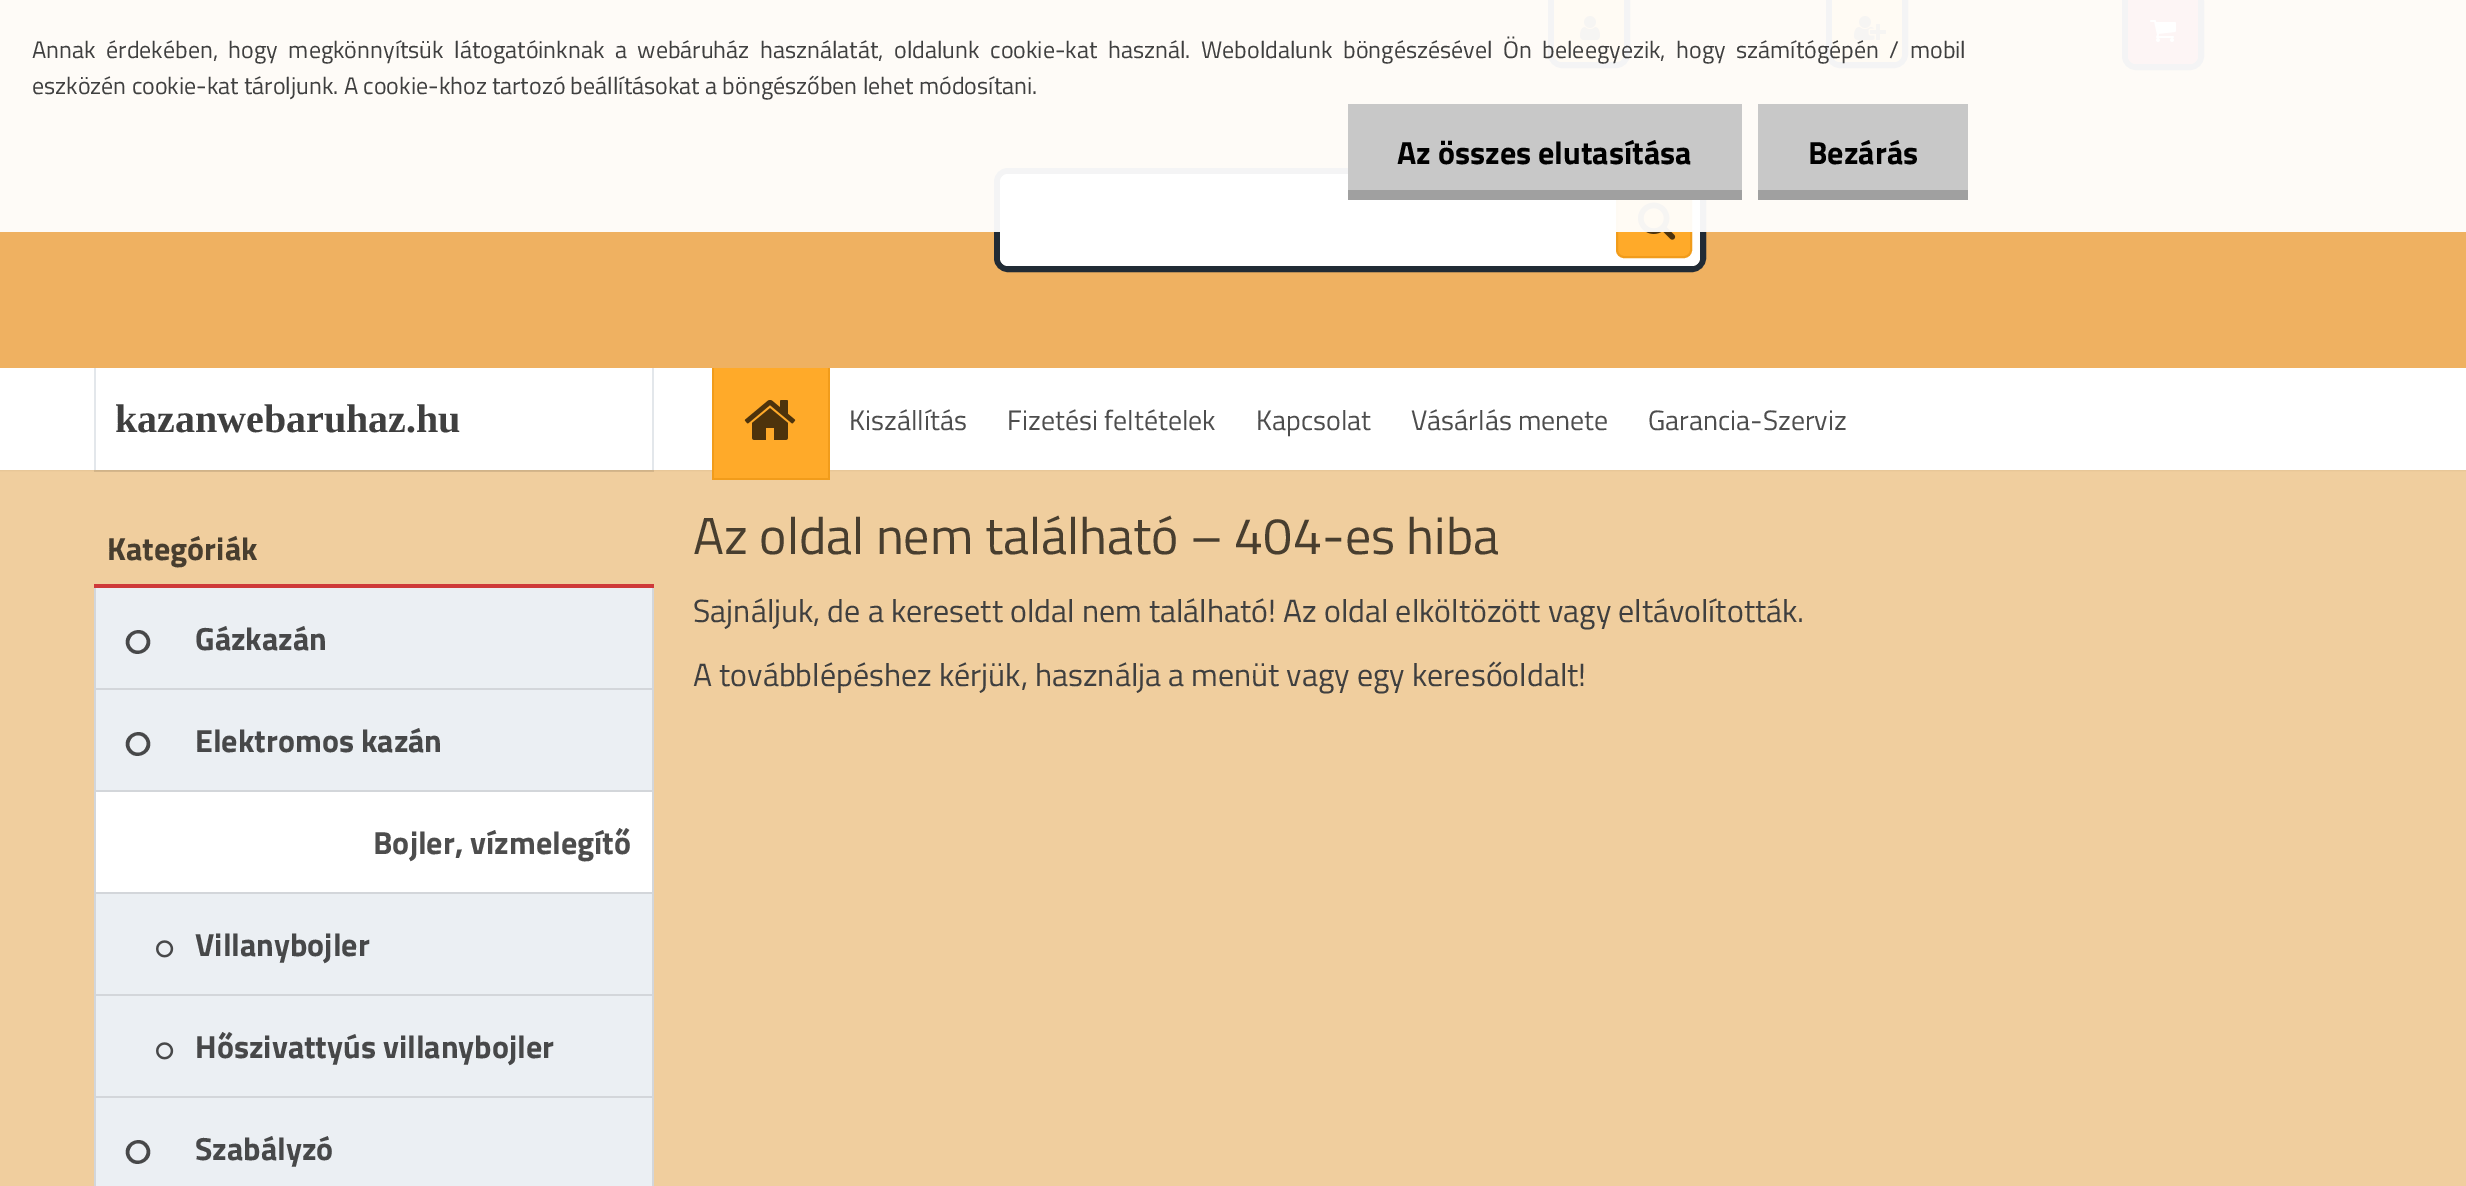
%!PS
<< /PageSize [2466 1186] /PageUsesTransparency true >> setpagedevice
/rgb { 3 { 255 div 3 1 roll } repeat setrgbcolor } def
/font { [ exch dup neg 0 0 3 -1 roll 0 0 ] selectfont } def
/alpha { dup .setfillconstantalpha .setstrokeconstantalpha } def
/roundrect { 5 dict begin { /r /h /w /y /x } { exch def } forall
  x r add y moveto x w add y 2 copy h add r arct x w add y h add x 1 index r arct
  x y h add x y r arct x y 2 copy exch w add exch r arct closepath end } def
/shadow { 12 dict begin { /a /b /q /h /w /y /x } { exch def } forall gsave /was 0 def
  9 -2 -9 { dup b mul 4 div /e exch def 1 sub .425 mul 2.718 exch exp 1 add a .99 .min exch div /now exch def
    1 1 now sub 1 was sub div sub alpha /was now def
    w h .min e 2 mul add 0 gt { x e sub y e sub w e 2 mul add h e 2 mul add
      q e add b .6 mul add w h .min 2 div e add .min 0 .max roundrect fill } if } for grestore end } def
/picture { 5 dict begin { /h /w /y /x /name } { exch def } forall
  gsave x y translate w h scale
  w h 8 [w 0 0 h 0 0] name (r) file false 3 colorimage grestore end } def
0 .pushpdf14devicefilter
0 1186 translate 1 -1 scale
4 setmiterlimit
240 206 158 rgb
0 0 2466 1186 rectfill
0 0 0 rgb
0 -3 2466 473 0 1 0.1 shadow
239 177 97 rgb
0 0 2466 368 rectfill
33 43 53 rgb
6 setlinewidth
997 171 706 98 11 roundrect stroke
255 255 255 rgb
1000 174 700 92 8 roundrect fill
255 170 41 rgb
1617 183 74 74 7 roundrect gsave fill grestore
241 156 27 rgb
2 setlinewidth
stroke
(img/1.rgb) 1638 202 38 38 picture
33 43 53 rgb
6 setlinewidth
1551 -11 76 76 11 roundrect stroke
255 170 41 rgb
1554 -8 70 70 8 roundrect fill
(img/2.rgb) 1580 16 20 24 picture
33 43 53 rgb
1829 -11 76 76 11 roundrect stroke
255 170 41 rgb
1832 -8 70 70 8 roundrect fill
(img/3.rgb) 1854 16 32 24 picture
33 43 53 rgb
2125 -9 76 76 11 roundrect stroke
207 57 57 rgb
2128 -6 70 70 8 roundrect fill
(img/4.rgb) 2150 20 26 22 picture
0.95 alpha
[
  [0 0 2466 232 255 255 255]
] { aload pop rgb rectfill } forall
1 alpha
[
  [1348 104 394 86 200 200 200]
  [1348 190 394 10 160 160 160]
  [1758 104 210 86 200 200 200]
  [1758 190 210 10 160 160 160]
  [0 368 2466 102 255 255 255]
] { aload pop rgb rectfill } forall
0.1 alpha
[
  [94 470 560 2 0 0 0]
] { aload pop rgb rectfill } forall
1 alpha
[
  [652 368 2 102 227 231 235]
  [94 368 2 102 227 231 235]
  [94 584 560 4 207 57 57]
  [96 588 556 100 235 239 243]
  [652 588 2 598 211 214 218]
  [94 688 560 2 211 214 218]
  [94 588 2 102 211 214 218]
] { aload pop rgb rectfill } forall
71 72 73 rgb
142.5 634.5 moveto 132.5 629 124 643.5 133.5 649.5 curveto 143.5 655 152 640.5 142.5 634.5 curveto closepath 148.5 636 moveto 156.5 649.5 135.5 661.5 127.5 648 curveto 119.5 634.5 140.5 622.5 148.5 636 curveto closepath fill
[
  [96 690 556 100 235 239 243]
  [94 790 560 2 211 214 218]
  [94 690 2 102 211 214 218]
] { aload pop rgb rectfill } forall
71 72 73 rgb
142.5 736.5 moveto 132.5 731 124 745.5 133.5 751.5 curveto 143.5 757 152 742.5 142.5 736.5 curveto closepath 148.5 738 moveto 156.5 751.5 135.5 763.5 127.5 750 curveto 119.5 736.5 140.5 724.5 148.5 738 curveto closepath fill
[
  [96 792 556 100 255 255 255]
  [94 892 560 2 211 214 218]
  [94 792 2 102 211 214 218]
  [96 894 556 100 235 239 243]
  [94 994 560 2 211 214 218]
  [94 894 2 102 211 214 218]
] { aload pop rgb rectfill } forall
(img/5.rgb) 156 940 18 18 picture
[
  [96 996 556 100 235 239 243]
  [94 1096 560 2 211 214 218]
  [94 996 2 190 211 214 218]
] { aload pop rgb rectfill } forall
(img/5.rgb) 156 1042 18 18 picture
235 239 243 rgb
96 1098 556 88 rectfill
71 72 73 rgb
142.5 1144.5 moveto 132.5 1139 124 1153.5 133.5 1159.5 curveto 143.5 1165 152 1150.5 142.5 1144.5 curveto closepath 148.5 1146 moveto 156.5 1159.5 135.5 1171.5 127.5 1158 curveto 119.5 1144.5 140.5 1132.5 148.5 1146 curveto closepath fill
[
  [714 368 114 110 255 170 41]
  [828 368 2 112 241 156 27]
  [712 478 118 2 241 156 27]
  [712 368 2 112 241 156 27]
] { aload pop rgb rectfill } forall
(img/6.rgb) 744 400 52 40 picture
/TitilliumWeb-Regular 24 font
63 63 63 rgb
32 58 moveto 5.25 0 32 (Annak érdekében, hogy megkönnyítsük látogatóinknak a webáruház használatát, oldalunk cookie-kat használ. Weboldalunk böngészésével Ön beleegyezik, hogy számítógépén / mobil) widthshow
32 94 moveto (eszközén cookie-kat tároljunk. A cookie-khoz tartozó beállításokat a böngészőben lehet módosítani.) show
/TitilliumWeb-Bold 32 font
0 0 0 rgb
1397 164 moveto (Az összes elutasítása) show
1808 164 moveto (Bezárás) show
/LiberationSerif-Bold 40 font
63 63 63 rgb
115 432 moveto (kazanwebaruhaz.hu) show
/TitilliumWeb-Bold 32 font
72 62 47 rgb
107 560 moveto (Kategóriák) show
71 72 73 rgb
195 650 moveto (Gázkazán) show
195 752 moveto (Elektromos kazán) show
77 77 77 rgb
373 854 moveto (Bojler, vízmelegítő) show
71 72 73 rgb
[
  [(Villanybojler) 195 956]
  [(Hőszivattyús villanybojler) 195 1058]
  [(Szabályzó) 195 1160]
] { aload pop moveto show } forall
/TitilliumWeb-Regular 52 font
72 62 47 rgb
693 554 moveto (Az oldal nem található – 404-es hiba) show
/TitilliumWeb-Regular 32 font
63 63 63 rgb
693 622 moveto (Sajnáljuk, de a keresett oldal nem található! Az oldal elköltözött vagy eltávolították.) show
693 686 moveto (A továbblépéshez kérjük, használja a menüt vagy egy keresőoldalt!) show
/TitilliumWeb-Regular 28 font
77 77 77 rgb
[
  [(Kiszállítás) 849 430]
  [(Fizetési feltételek) 1007 430]
  [(Kapcsolat) 1256 430]
  [(Vásárlás menete) 1411 430]
  [(Garancia-Szerviz) 1648 430]
] { aload pop moveto show } forall
.poppdf14devicefilter showpage
